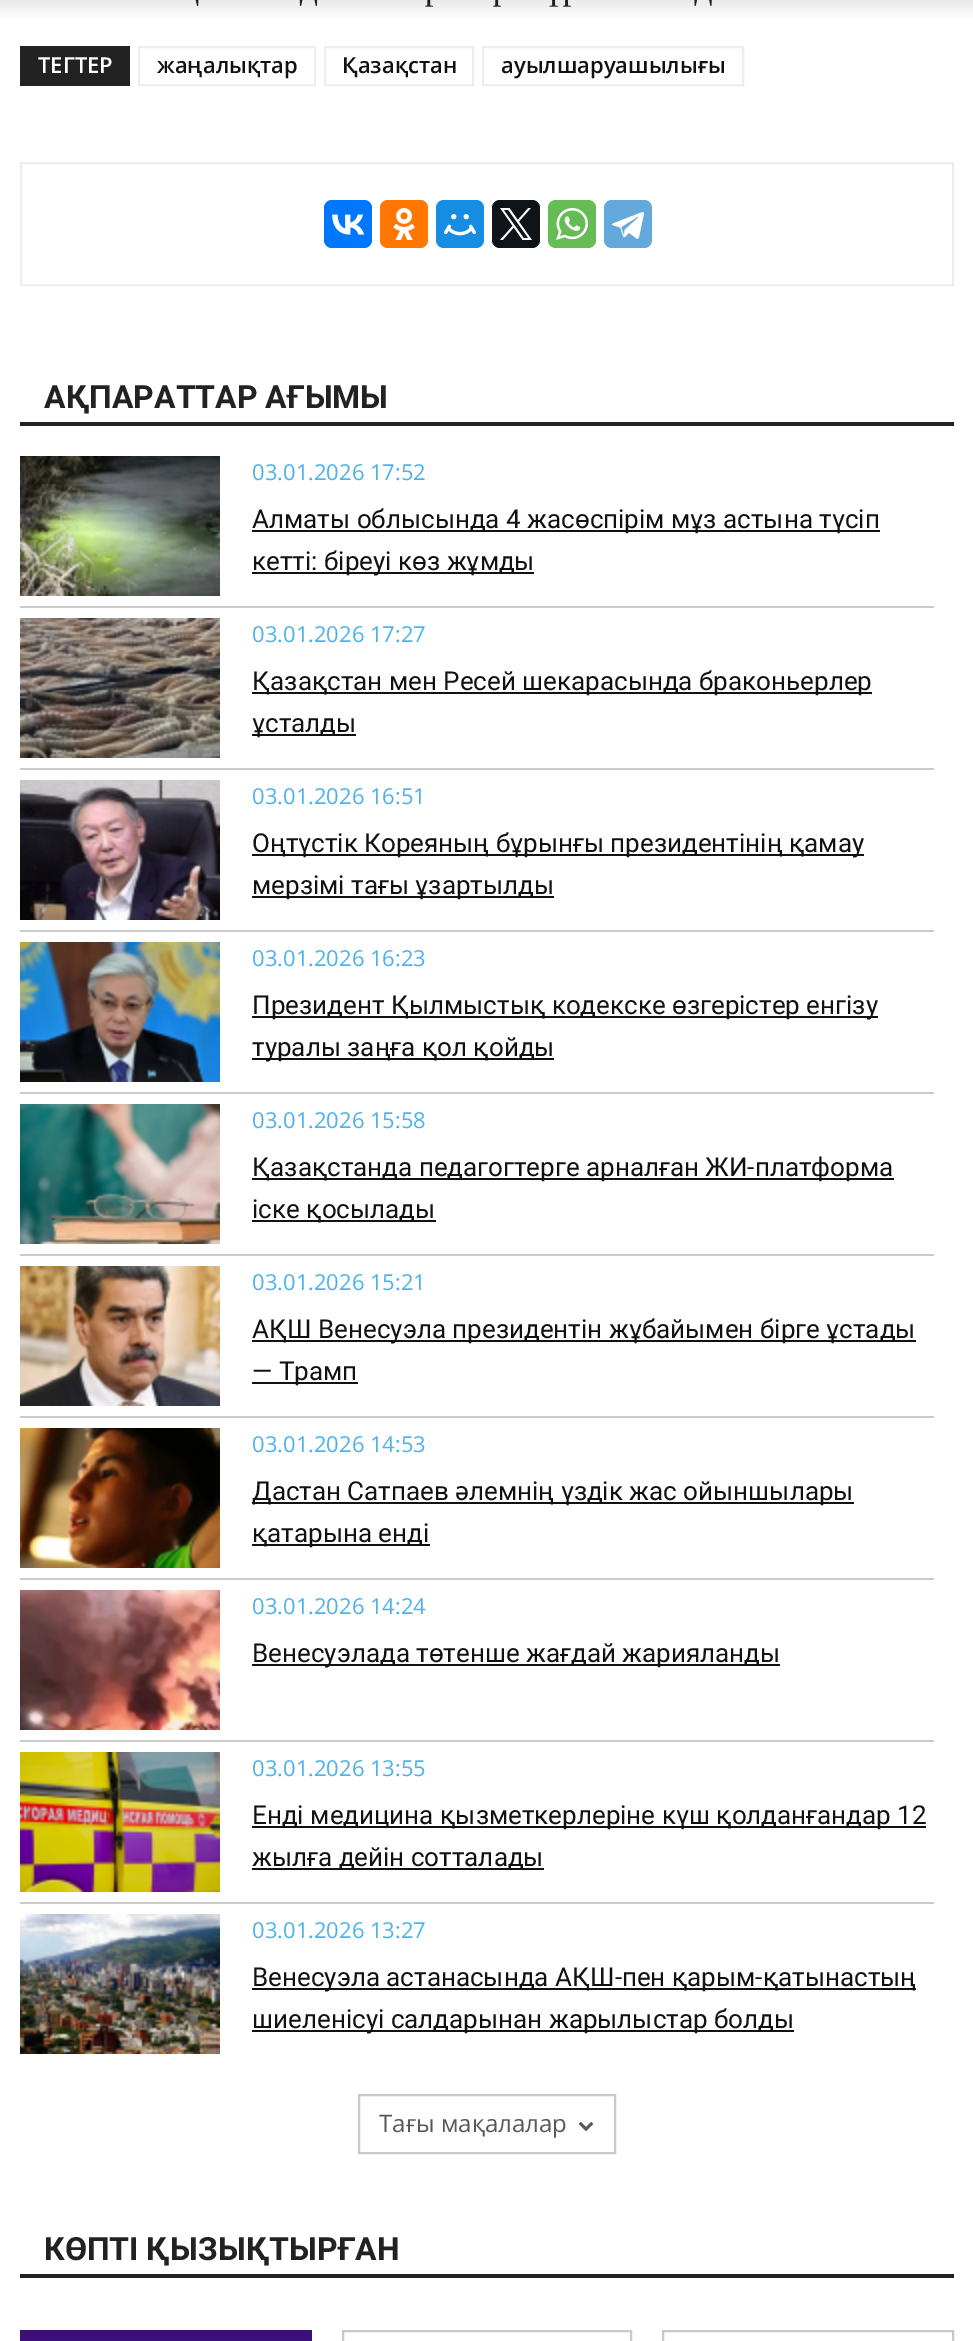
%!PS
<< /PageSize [973 2341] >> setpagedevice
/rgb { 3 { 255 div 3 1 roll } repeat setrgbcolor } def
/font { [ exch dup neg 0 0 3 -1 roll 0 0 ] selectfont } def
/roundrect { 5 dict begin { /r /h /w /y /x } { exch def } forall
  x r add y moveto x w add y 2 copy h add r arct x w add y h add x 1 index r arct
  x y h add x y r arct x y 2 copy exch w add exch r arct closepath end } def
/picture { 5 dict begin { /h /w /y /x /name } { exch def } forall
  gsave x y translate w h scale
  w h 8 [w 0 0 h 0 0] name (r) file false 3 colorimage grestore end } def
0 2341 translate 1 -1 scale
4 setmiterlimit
255 255 255 rgb
0 0 973 2341 rectfill
(img/1.rgb) 0 0 973 17 picture
34 34 34 rgb
20 46 110 40 rectfill
237 237 237 rgb
2 setlinewidth
139 47 176 38 rectstroke
325 47 148 38 rectstroke
483 47 260 38 rectstroke
21 163 932 122 rectstroke
0 119 255 rgb
324 200 48 48 8 roundrect fill
(img/2.rgb) 332 214 33 21 picture
255 119 0 rgb
380 200 48 48 8 roundrect fill
(img/3.rgb) 393 208 22 32 picture
22 141 226 rgb
436 200 48 48 8 roundrect fill
(img/4.rgb) 444 214 32 22 picture
15 20 25 rgb
492 200 48 48 8 roundrect fill
(img/5.rgb) 500 208 32 32 picture
101 188 84 rgb
548 200 48 48 8 roundrect fill
(img/6.rgb) 556 208 32 32 picture
100 169 220 rgb
604 200 48 48 8 roundrect fill
(img/7.rgb) 612 212 32 27 picture
34 34 34 rgb
20 422 934 4 rectfill
204 204 204 rgb
20 606 914 2 rectfill
(img/8.rgb) 20 456 200 140 picture
[
  [252 530 628 2 17 17 17]
  [252 572 282 2 17 17 17]
  [20 768 914 2 204 204 204]
] { aload pop rgb rectfill } forall
(img/9.rgb) 20 618 200 140 picture
[
  [252 692 620 2 17 17 17]
  [252 734 104 2 17 17 17]
  [20 930 914 2 204 204 204]
] { aload pop rgb rectfill } forall
(img/10.rgb) 20 780 200 140 picture
[
  [252 854 612 2 17 17 17]
  [252 896 302 2 17 17 17]
  [20 1092 914 2 204 204 204]
] { aload pop rgb rectfill } forall
(img/11.rgb) 20 942 200 140 picture
[
  [252 1016 626 2 17 17 17]
  [252 1058 302 2 17 17 17]
  [20 1254 914 2 204 204 204]
] { aload pop rgb rectfill } forall
(img/12.rgb) 20 1104 200 140 picture
[
  [252 1178 642 2 17 17 17]
  [252 1220 184 2 17 17 17]
  [20 1416 914 2 204 204 204]
] { aload pop rgb rectfill } forall
(img/13.rgb) 20 1266 200 140 picture
[
  [252 1340 664 2 17 17 17]
  [252 1382 106 2 17 17 17]
  [20 1578 914 2 204 204 204]
] { aload pop rgb rectfill } forall
(img/14.rgb) 20 1428 200 140 picture
[
  [252 1502 602 2 17 17 17]
  [252 1544 178 2 17 17 17]
  [20 1740 914 2 204 204 204]
] { aload pop rgb rectfill } forall
(img/15.rgb) 20 1590 200 140 picture
17 17 17 rgb
252 1664 528 2 rectfill
204 204 204 rgb
20 1902 914 2 rectfill
(img/16.rgb) 20 1752 200 140 picture
17 17 17 rgb
252 1826 674 2 rectfill
252 1868 292 2 rectfill
(img/17.rgb) 20 1914 200 140 picture
252 1988 664 2 rectfill
252 2030 542 2 rectfill
201 201 201 rgb
359 2095 256 58 rectstroke
(img/18.rgb) 578 2122 16 9 picture
34 34 34 rgb
20 2274 934 4 rectfill
61 15 122 rgb
20 2330 292 11 rectfill
201 201 201 rgb
343 2331 288 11 rectstroke
663 2331 290 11 rectstroke
/OpenSans-SemiBold 22 font
255 255 255 rgb
38 73 moveto (ТЕГТЕР) show
17 17 17 rgb
[
  [(жаңалықтар) 157 73]
  [(Қазақстан) 342 73]
  [(ауылшаруашылығы) 501 73]
] { aload pop moveto show } forall
/Roboto-Bold 32 font
34 34 34 rgb
44 408 moveto (АҚПАРАТТАР АҒЫМЫ) show
/OpenSans-Regular 22 font
77 178 236 rgb
252 480 moveto (03.01.2026 17:52) show
/Roboto-Regular 26 font
17 17 17 rgb
252 528 moveto (Алматы облысында 4 жасөспірім мұз астына түсіп) show
252 570 moveto (кетті: біреуі көз жұмды) show
/OpenSans-Regular 22 font
77 178 236 rgb
252 642 moveto (03.01.2026 17:27) show
/Roboto-Regular 26 font
17 17 17 rgb
252 690 moveto (Қазақстан мен Ресей шекарасында браконьерлер) show
252 732 moveto (ұсталды) show
/OpenSans-Regular 22 font
77 178 236 rgb
252 804 moveto (03.01.2026 16:51) show
/Roboto-Regular 26 font
17 17 17 rgb
252 852 moveto (Оңтүстік Кореяның бұрынғы президентінің қамау) show
252 894 moveto (мерзімі тағы ұзартылды) show
/OpenSans-Regular 22 font
77 178 236 rgb
252 966 moveto (03.01.2026 16:23) show
/Roboto-Regular 26 font
17 17 17 rgb
252 1014 moveto (Президент Қылмыстық кодекске өзгерістер енгізу) show
252 1056 moveto (туралы заңға қол қойды) show
/OpenSans-Regular 22 font
77 178 236 rgb
252 1128 moveto (03.01.2026 15:58) show
/Roboto-Regular 26 font
17 17 17 rgb
252 1176 moveto (Қазақстанда педагогтерге арналған ЖИ-платформа) show
252 1218 moveto (іске қосылады) show
/OpenSans-Regular 22 font
77 178 236 rgb
252 1290 moveto (03.01.2026 15:21) show
/Roboto-Regular 26 font
17 17 17 rgb
252 1338 moveto (АҚШ Венесуэла президентін жұбайымен бірге ұстады) show
252 1380 moveto (— Трамп) show
/OpenSans-Regular 22 font
77 178 236 rgb
252 1452 moveto (03.01.2026 14:53) show
/Roboto-Regular 26 font
17 17 17 rgb
252 1500 moveto (Дастан Сатпаев әлемнің үздік жас ойыншылары) show
252 1542 moveto (қатарына енді) show
/OpenSans-Regular 22 font
77 178 236 rgb
252 1614 moveto (03.01.2026 14:24) show
/Roboto-Regular 26 font
17 17 17 rgb
252 1662 moveto (Венесуэлада төтенше жағдай жарияланды) show
/OpenSans-Regular 22 font
77 178 236 rgb
252 1776 moveto (03.01.2026 13:55) show
/Roboto-Regular 26 font
17 17 17 rgb
252 1824 moveto (Енді медицина қызметкерлеріне күш қолданғандар 12) show
252 1866 moveto (жылға дейін сотталады) show
/OpenSans-Regular 22 font
77 178 236 rgb
252 1938 moveto (03.01.2026 13:27) show
/Roboto-Regular 26 font
17 17 17 rgb
252 1986 moveto (Венесуэла астанасында АҚШ-пен қарым-қатынастың) show
252 2028 moveto (шиеленісуі салдарынан жарылыстар болды) show
/OpenSans-Regular 24 font
89 89 89 rgb
379 2132 moveto (Тағы мақалалар) show
/Roboto-Bold 32 font
34 34 34 rgb
44 2260 moveto (КӨПТІ ҚЫЗЫҚТЫРҒАН) show
showpage
